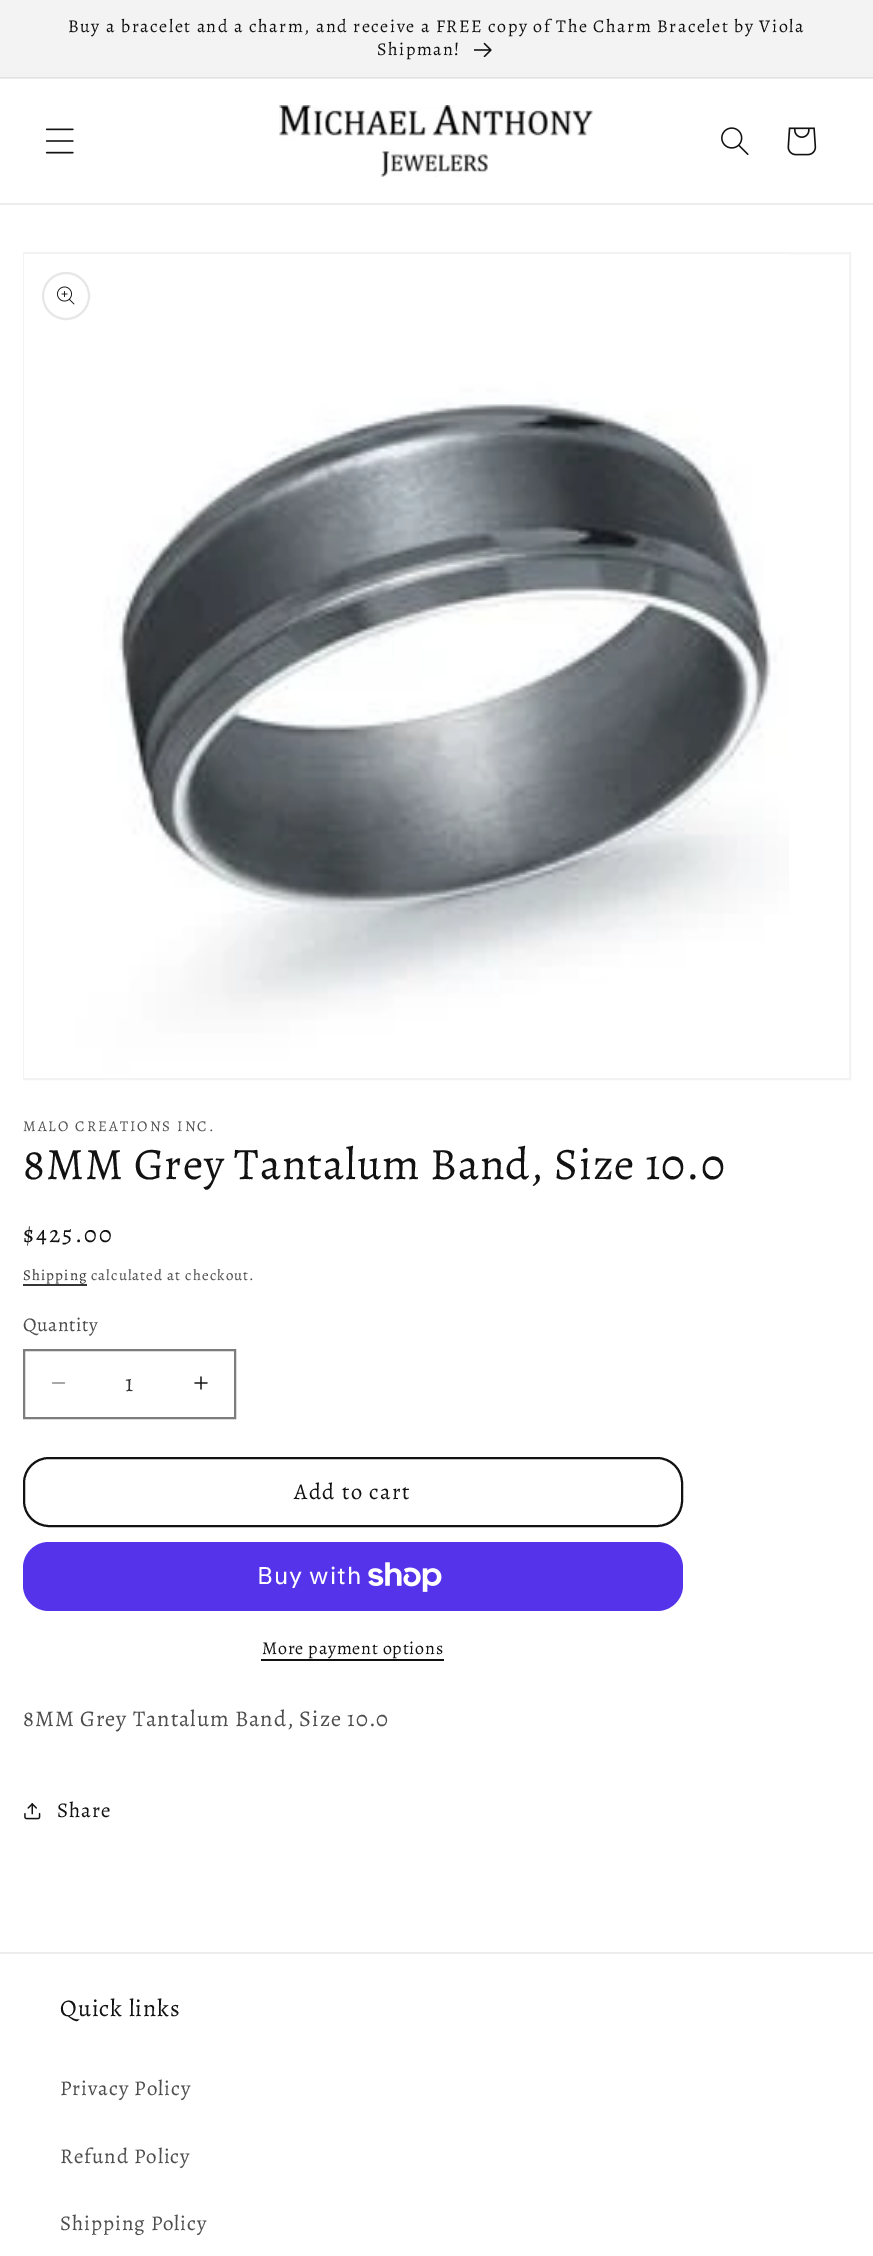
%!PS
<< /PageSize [873 2256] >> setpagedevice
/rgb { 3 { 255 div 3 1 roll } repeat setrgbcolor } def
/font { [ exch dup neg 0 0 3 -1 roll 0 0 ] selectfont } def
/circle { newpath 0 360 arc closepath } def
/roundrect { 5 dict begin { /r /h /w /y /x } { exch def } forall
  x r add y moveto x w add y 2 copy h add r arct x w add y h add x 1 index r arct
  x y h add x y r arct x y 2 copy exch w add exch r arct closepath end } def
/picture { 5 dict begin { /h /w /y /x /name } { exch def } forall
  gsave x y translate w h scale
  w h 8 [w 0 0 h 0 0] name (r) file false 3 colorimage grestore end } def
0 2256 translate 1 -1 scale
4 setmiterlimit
255 255 255 rgb
0 0 873 2256 rectfill
[
  [0 78 873 1 236 236 236]
  [0 0 873 77 243 243 243]
  [0 77 873 1 225 225 225]
] { aload pop rgb rectfill } forall
(img/1.rgb) 474 42 18 15 picture
236 236 236 rgb
0 203 873 2 rectfill
(img/2.rgb) 45 128 29 26 picture
(img/3.rgb) 279 105 314 72 picture
(img/4.rgb) 721 127 28 28 picture
(img/5.rgb) 787 127 30 29 picture
243 243 243 rgb
2 setlinewidth
24 253 826 826 rectstroke
(img/6.rgb) 24 254 765 824 picture
231 231 231 rgb
66 296 23 circle stroke
(img/7.rgb) 57 286 18 19 picture
54 54 54 rgb
23 1284 64 2 rectfill
(img/8.rgb) 51 1382 15 2 picture
(img/9.rgb) 194 1376 14 14 picture
125 125 125 rgb
24 1350 211 68 rectstroke
18 18 18 rgb
24 1458 658 68 25 roundrect stroke
84 51 235 rgb
23 1542 660 69 26 roundrect fill
(img/10.rgb) 368 1562 74 30 picture
18 18 18 rgb
261 1659 183 2 rectfill
(img/11.rgb) 24 1803 17 17 picture
236 236 236 rgb
0 1952 873 2 rectfill
/Alegreya-Regular 18 font
18 18 18 rgb
68 32 moveto 1.5 0 (Buy a bracelet and a charm, and receive a FREE copy of The Charm Bracelet by Viola) ashow
377 55 moveto 1.5 0 (Shipman!) ashow
/Alegreya-Regular 15 font
77 77 77 rgb
23 1131 moveto 2 0 (MALO CREATIONS INC.) ashow
/Alegreya-Regular 45 font
18 18 18 rgb
23 1179 moveto 0.9 0 (8MM Grey Tantalum Band, Size 10.0) ashow
/Alegreya-Regular 24 font
23 1242 moveto 2 0 ($425.00) ashow
/Alegreya-Regular 15 font
54 54 54 rgb
23 1280 moveto 1.05 0 (Shipping) ashow
77 77 77 rgb
91 1280 moveto 1.05 0 (calculated at checkout.) ashow
/Alegreya-Regular 19.5 font
23 1331 moveto 0.5 0 (Quantity) ashow
/Alegreya-Regular 24 font
54 54 54 rgb
125 1391 moveto (1) show
/Alegreya-Regular 22.5 font
18 18 18 rgb
294 1499 moveto 1.5 0 (Add to cart) ashow
/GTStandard-Regular 24 font
255 255 255 rgb
257 1584 moveto 0.9 0 (Buy with) ashow
/Alegreya-Regular 18 font
18 18 18 rgb
262 1654 moveto 0.75 0 (More payment options) ashow
/Alegreya-Regular 22.5 font
77 77 77 rgb
23 1726 moveto 0.9 0 (8MM Grey Tantalum Band, Size 10.0) ashow
/Alegreya-Regular 21 font
18 18 18 rgb
57 1817 moveto 0.9 0 (Share) ashow
/Alegreya-Regular 24 font
60 2016 moveto 0.9 0 (Quick links) ashow
/Alegreya-Regular 21 font
77 77 77 rgb
60 2095 moveto 0.9 0 (Privacy Policy) ashow
60 2163 moveto 0.9 0 (Refund Policy) ashow
60 2230 moveto 0.9 0 (Shipping Policy) ashow
showpage
